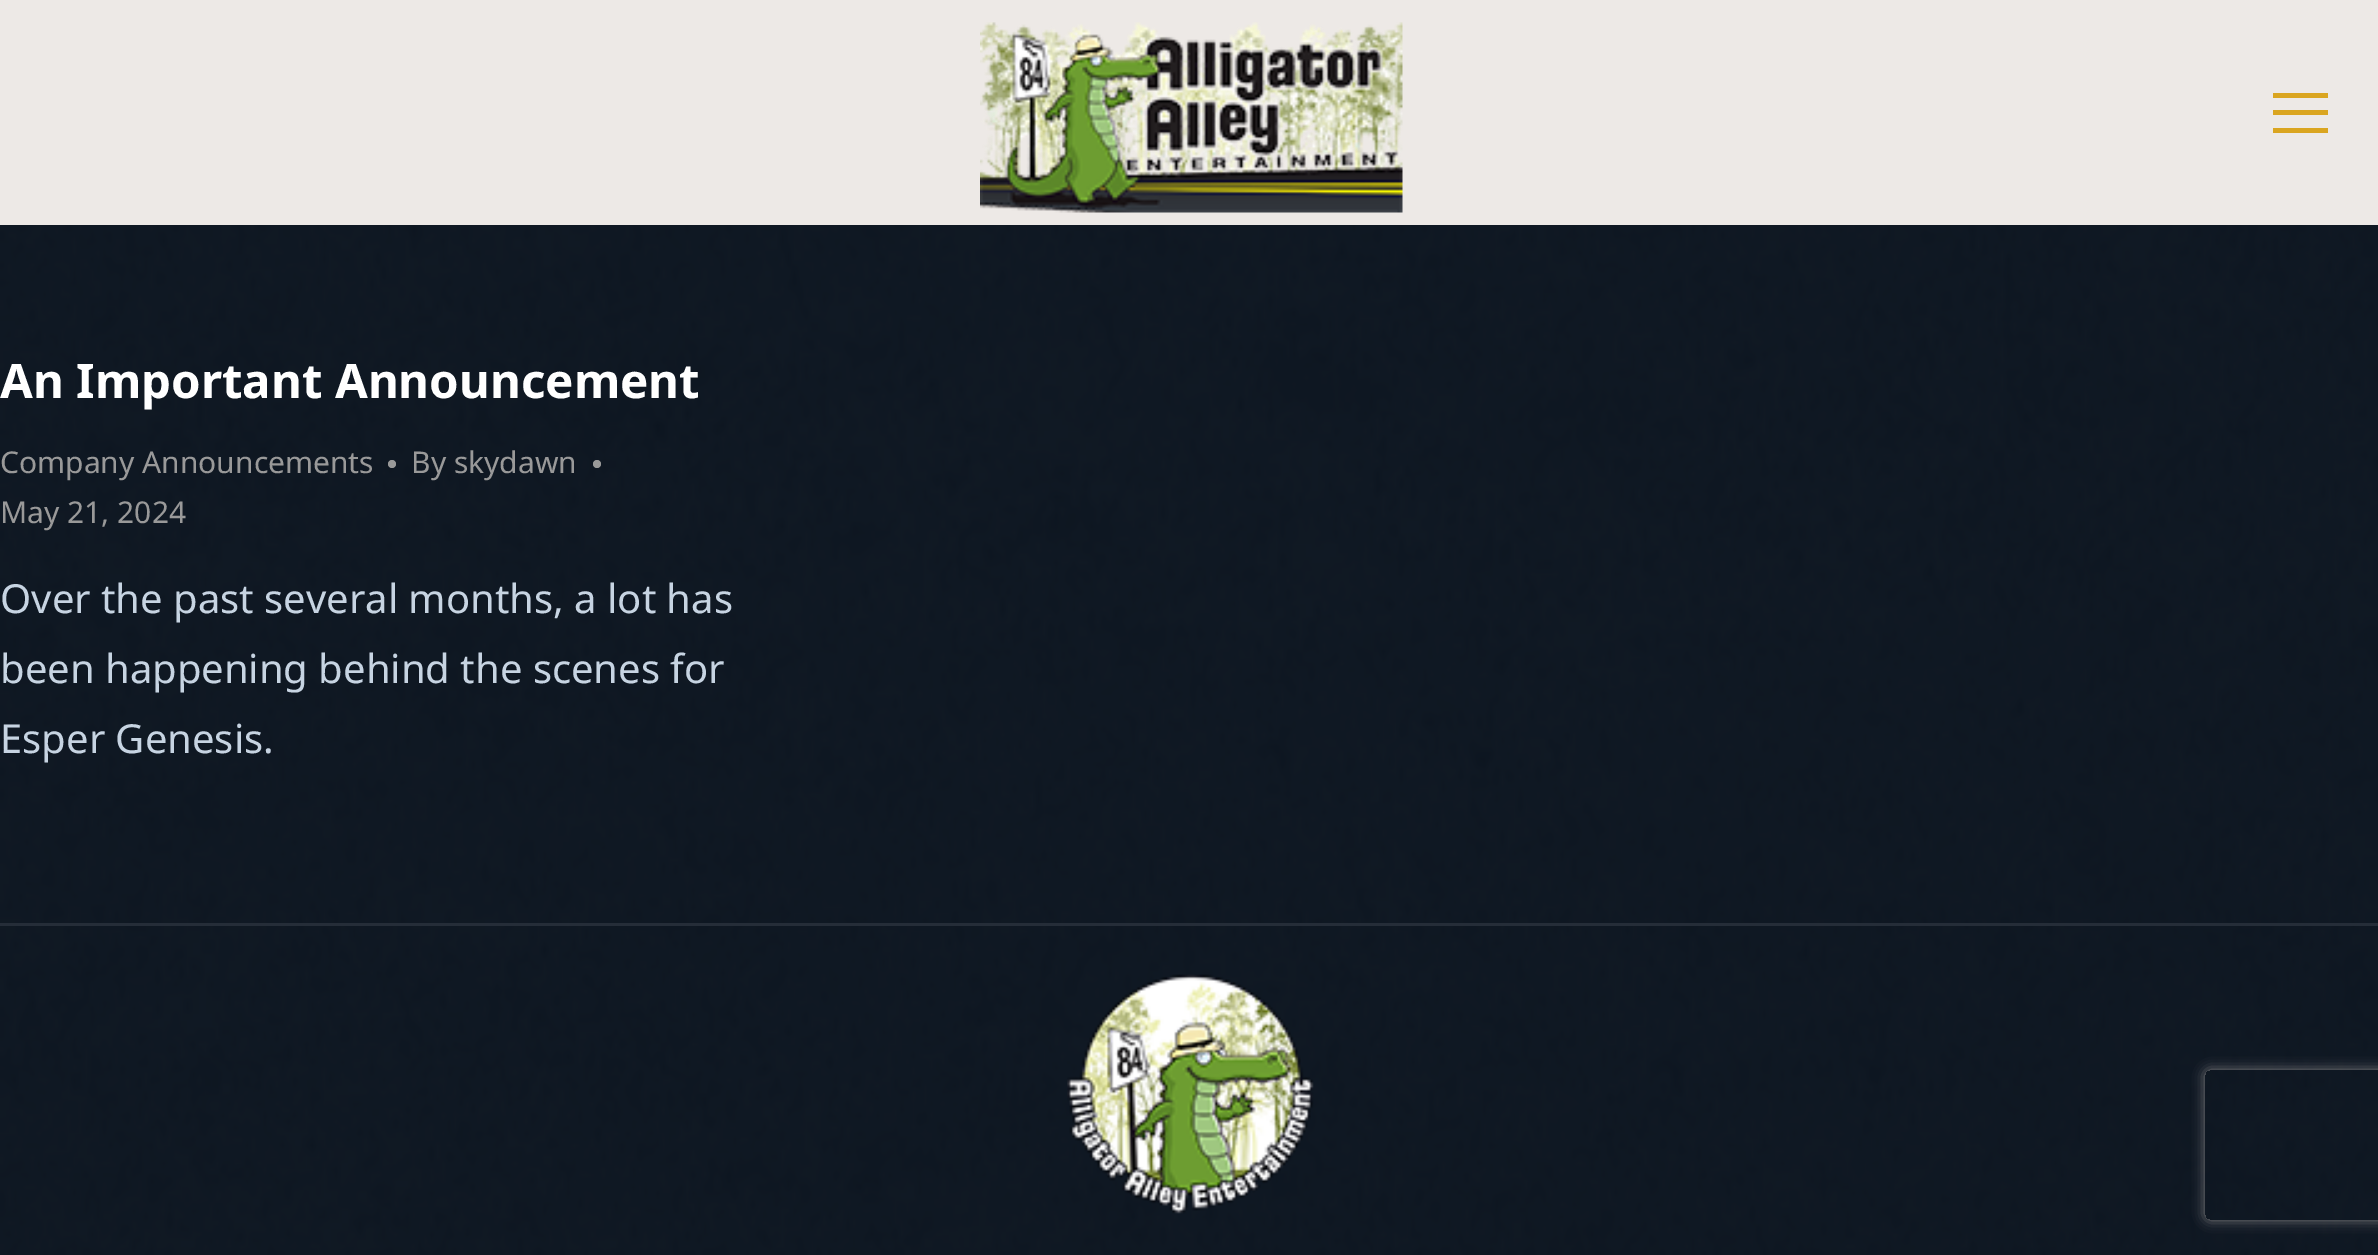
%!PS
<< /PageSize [2378 1255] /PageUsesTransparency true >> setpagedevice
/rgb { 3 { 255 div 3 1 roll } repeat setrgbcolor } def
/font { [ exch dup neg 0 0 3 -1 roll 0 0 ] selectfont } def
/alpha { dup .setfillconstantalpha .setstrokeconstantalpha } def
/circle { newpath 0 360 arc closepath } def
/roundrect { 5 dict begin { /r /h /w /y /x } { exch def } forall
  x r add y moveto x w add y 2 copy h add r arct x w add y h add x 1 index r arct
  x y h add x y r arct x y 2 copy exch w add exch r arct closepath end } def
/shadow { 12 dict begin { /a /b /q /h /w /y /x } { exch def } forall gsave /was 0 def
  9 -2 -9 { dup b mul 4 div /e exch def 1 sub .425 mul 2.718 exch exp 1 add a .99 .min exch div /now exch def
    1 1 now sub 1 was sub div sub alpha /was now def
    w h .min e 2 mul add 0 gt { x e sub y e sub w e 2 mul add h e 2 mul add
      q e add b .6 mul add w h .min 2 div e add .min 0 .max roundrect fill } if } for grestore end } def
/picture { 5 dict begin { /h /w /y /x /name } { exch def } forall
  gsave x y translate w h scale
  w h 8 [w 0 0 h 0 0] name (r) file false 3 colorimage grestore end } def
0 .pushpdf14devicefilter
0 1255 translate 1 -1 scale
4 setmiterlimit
11 20 31 rgb
0 0 2378 1255 rectfill
(img/1.rgb) 0 225 2378 1030 picture
237 233 230 rgb
0 0 2378 225 rectfill
(img/2.rgb) 980 22 423 191 picture
[
  [2273 93 55 5 218 165 32]
  [2273 110 55 5 218 165 32]
  [2273 128 55 5 218 165 32]
] { aload pop rgb rectfill } forall
153 153 153 rgb
392 464 4 circle fill
597 464 4 circle fill
37 45 56 rgb
0 923 2378 3 rectfill
(img/3.rgb) 1067 974 247 240 picture
gsave
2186 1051 moveto 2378 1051 lineto 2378 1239 lineto 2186 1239 lineto closepath 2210 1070 moveto 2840 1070 lineto 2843 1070 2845 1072 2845 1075 curveto 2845 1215 lineto 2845 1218 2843 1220 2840 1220 curveto 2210 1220 lineto 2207 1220 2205 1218 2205 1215 curveto 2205 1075 lineto 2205 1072 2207 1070 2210 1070 curveto closepath eoclip newpath
128 128 128 rgb
2205 1070 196 150 5 6 1 shadow
grestore
/NotoSans-Bold 47.5 font
255 255 255 rgb
0 398 moveto (An Important Announcement) show
/NotoSans-Regular 30 font
153 153 153 rgb
[
  [(Company Announcements) 0 473]
  [(By skydawn) 411 473]
  [(May 21, 2024) 0 523]
] { aload pop moveto show } forall
/NotoSans-Regular 40 font
199 212 226 rgb
[
  [(Over the past several months, a lot has) 0 613]
  [(been happening behind the scenes for) 0 683]
  [(Esper Genesis.) 0 753]
] { aload pop moveto show } forall
.poppdf14devicefilter showpage
